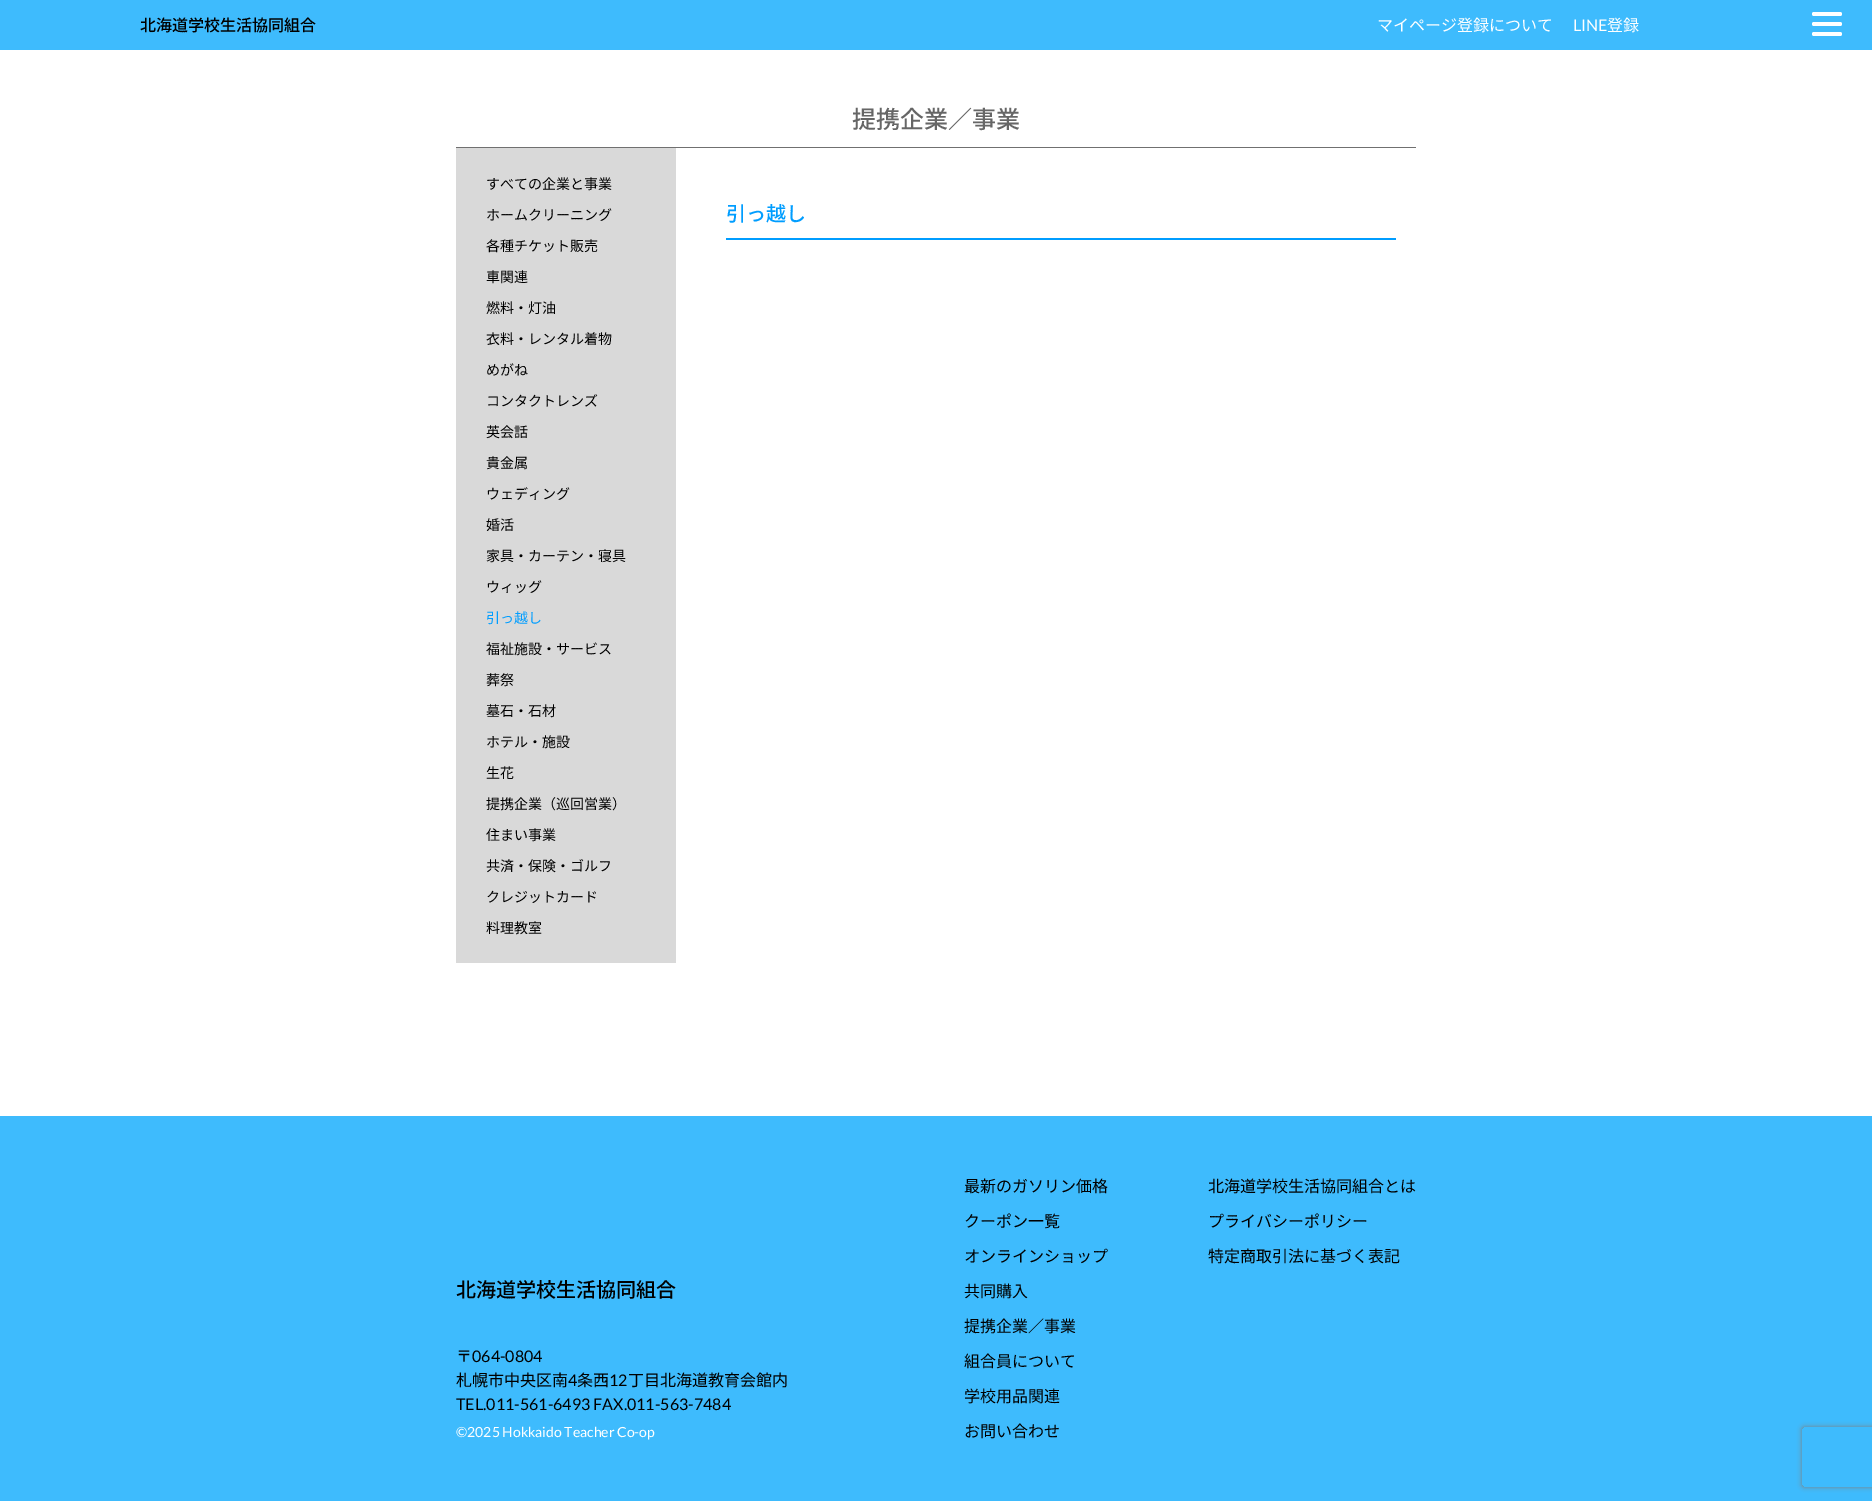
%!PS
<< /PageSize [1872 1501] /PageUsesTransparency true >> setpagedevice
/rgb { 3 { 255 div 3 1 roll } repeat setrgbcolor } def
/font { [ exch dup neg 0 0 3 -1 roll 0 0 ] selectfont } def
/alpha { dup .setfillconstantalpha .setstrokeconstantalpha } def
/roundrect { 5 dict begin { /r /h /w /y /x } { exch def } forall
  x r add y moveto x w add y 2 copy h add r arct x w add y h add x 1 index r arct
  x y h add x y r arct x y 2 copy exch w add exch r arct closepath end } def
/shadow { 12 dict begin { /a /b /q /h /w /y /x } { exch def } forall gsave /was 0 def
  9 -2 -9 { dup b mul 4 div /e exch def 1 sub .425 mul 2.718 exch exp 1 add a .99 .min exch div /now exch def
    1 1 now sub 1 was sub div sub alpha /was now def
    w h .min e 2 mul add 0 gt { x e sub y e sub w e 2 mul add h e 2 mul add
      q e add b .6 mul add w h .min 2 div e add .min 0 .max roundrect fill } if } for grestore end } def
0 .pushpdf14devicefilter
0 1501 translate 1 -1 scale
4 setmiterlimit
255 255 255 rgb
0 0 1872 1501 rectfill
62 187 253 rgb
0 0 1872 50 rectfill
255 255 255 rgb
1812 12 30 4 2 roundrect fill
1812 22 30 4 2 roundrect fill
1812 32 30 4 2 roundrect fill
[
  [456 147 960 1 112 112 112]
  [456 148 220 815 217 217 217]
  [726 238 670 2 0 157 255]
  [0 1116 1872 385 62 187 253]
] { aload pop rgb rectfill } forall
gsave
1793 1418 moveto 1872 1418 lineto 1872 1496 lineto 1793 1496 lineto closepath 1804 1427 moveto 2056 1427 lineto 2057 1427 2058 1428 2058 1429 curveto 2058 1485 lineto 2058 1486 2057 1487 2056 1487 curveto 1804 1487 lineto 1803 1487 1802 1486 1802 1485 curveto 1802 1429 lineto 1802 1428 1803 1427 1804 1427 curveto closepath eoclip newpath
128 128 128 rgb
1802 1427 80 60 2 2.5 1 shadow
grestore
/NotoSansJP-Medium 16 font
0 0 0 rgb
140 31 moveto (北海道学校生活協同組合) show
/NotoSansJP-Regular 16 font
255 255 255 rgb
1377 31 moveto (マイページ登録について) show
/Lato-Regular 16 font
1573 31 moveto (LINE) show
/NotoSansJP-Regular 16 font
1607 31 moveto (登録) show
/NotoSansJP-Medium 24 font
102 102 102 rgb
852 128 moveto (提携企業／事業) show
/NotoSansJP-Regular 14 font
0 0 0 rgb
[
  [(すべての企業と事業) 486 189]
  [(ホームクリーニング) 486 220]
  [(各種チケット販売) 486 251]
  [(車関連) 486 282]
  [(燃料・灯油) 486 313]
  [(衣料・レンタル着物) 486 344]
  [(めがね) 486 375]
  [(コンタクトレンズ) 486 406]
  [(英会話) 486 437]
  [(貴金属) 486 468]
  [(ウェディング) 486 499]
  [(婚活) 486 530]
  [(家具・カーテン・寝具) 486 561]
  [(ウィッグ) 486 592]
] { aload pop moveto show } forall
0 157 255 rgb
486 623 moveto (引っ越し) show
0 0 0 rgb
[
  [(福祉施設・サービス) 486 654]
  [(葬祭) 486 685]
  [(墓石・石材) 486 716]
  [(ホテル・施設) 486 747]
  [(生花) 486 778]
  [(提携企業（巡回営業）) 486 809]
  [(住まい事業) 486 840]
  [(共済・保険・ゴルフ) 486 871]
  [(クレジットカード) 486 902]
  [(料理教室) 486 933]
] { aload pop moveto show } forall
/NotoSansJP-Medium 20 font
0 157 255 rgb
726 221 moveto (引っ越し) show
0 0 0 rgb
456 1297 moveto (北海道学校生活協同組合) show
/NotoSansJP-Regular 16 font
456 1362 moveto (〒) show
/Lato-Regular 16 font
472 1362 moveto (064-0804) show
/NotoSansJP-Regular 16 font
456 1386 moveto (札幌市中央区南) show
/Lato-Regular 16 font
568 1386 moveto (4) show
/NotoSansJP-Regular 16 font
577 1386 moveto (条西) show
/Lato-Regular 16 font
609 1386 moveto (12) show
/NotoSansJP-Regular 16 font
628 1386 moveto (丁目北海道教育会館内) show
/Lato-Regular 16 font
456 1410 moveto (TEL.011-561-6493 FAX.011-563-7484) show
/Lato-Regular 14 font
255 255 255 rgb
456 1437 moveto (©2025 Hokkaido Teacher Co-op) show
/NotoSansJP-Regular 16 font
0 0 0 rgb
[
  [(最新のガソリン価格) 964 1192]
  [(クーポン一覧) 964 1227]
  [(オンラインショップ) 964 1262]
  [(共同購入) 964 1297]
  [(提携企業／事業) 964 1332]
  [(組合員について) 964 1367]
  [(学校用品関連) 964 1402]
  [(お問い合わせ) 964 1437]
  [(北海道学校生活協同組合とは) 1208 1192]
  [(プライバシーポリシー) 1208 1227]
  [(特定商取引法に基づく表記) 1208 1262]
] { aload pop moveto show } forall
.poppdf14devicefilter showpage
